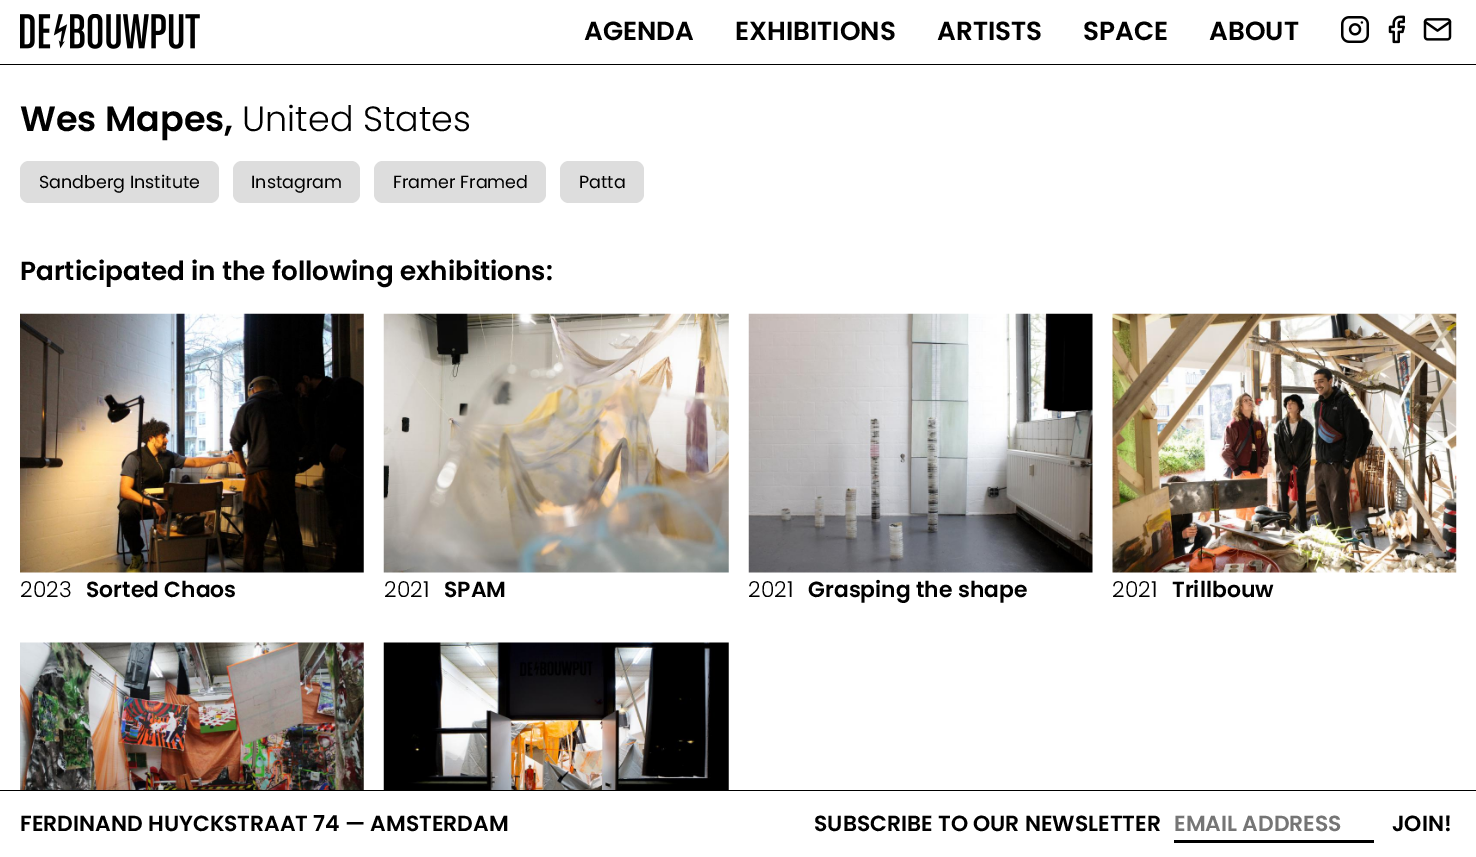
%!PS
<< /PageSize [1476 857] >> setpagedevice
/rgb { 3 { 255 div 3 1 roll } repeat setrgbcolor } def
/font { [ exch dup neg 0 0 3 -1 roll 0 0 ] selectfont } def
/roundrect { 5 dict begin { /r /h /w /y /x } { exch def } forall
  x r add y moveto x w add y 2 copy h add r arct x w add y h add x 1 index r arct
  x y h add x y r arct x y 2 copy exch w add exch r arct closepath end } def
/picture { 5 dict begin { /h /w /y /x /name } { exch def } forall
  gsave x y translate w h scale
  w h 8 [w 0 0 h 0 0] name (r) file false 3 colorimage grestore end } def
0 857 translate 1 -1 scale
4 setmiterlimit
255 255 255 rgb
0 0 1476 857 rectfill
0 0 0 rgb
0 64 1476 1 rectfill
(img/1.rgb) 20 14 180 35 picture
(img/2.rgb) 1341 16 28 27 picture
(img/3.rgb) 1388 15 17 29 picture
(img/4.rgb) 1423 18 29 23 picture
221 221 221 rgb
20 161 199 42 9 roundrect fill
233 161 127 42 9 roundrect fill
374 161 172 42 9 roundrect fill
560 161 84 42 9 roundrect fill
(img/5.rgb) 20 313 344 260 picture
(img/6.rgb) 383 313 346 260 picture
(img/7.rgb) 748 313 345 260 picture
(img/8.rgb) 1112 313 345 260 picture
(img/9.rgb) 20 642 344 148 picture
(img/10.rgb) 383 642 346 148 picture
0 0 0 rgb
0 790 1476 1 rectfill
1174 840 200 3 rectfill
/Poppins-SemiBold 26.25 font
[
  [(AGENDA) 584 40]
  [(EXHIBITIONS) 735 40]
  [(ARTISTS) 937 40]
  [(SPACE) 1083 40]
  [(ABOUT) 1209 40]
] { aload pop moveto show } forall
/Poppins-SemiBold 35 font
20 131 moveto (Wes Mapes,) show
/Poppins-Light 35 font
242 131 moveto (United States) show
/Poppins-Regular 17.5 font
[
  [(Sandberg Institute) 39 188]
  [(Instagram) 251 188]
  [(Framer Framed) 393 188]
  [(Patta) 579 188]
] { aload pop moveto show } forall
/Poppins-SemiBold 26.25 font
20 280 moveto (Participated in the following exhibitions:) show
/Poppins-Light 21.9 font
20 597 moveto (2023) show
/Poppins-SemiBold 21.9 font
86 597 moveto (Sorted Chaos) show
/Poppins-Light 21.9 font
384 597 moveto (2021) show
/Poppins-SemiBold 21.9 font
444 597 moveto (SPAM) show
/Poppins-Light 21.9 font
748 597 moveto (2021) show
/Poppins-SemiBold 21.9 font
808 597 moveto (Grasping the shape) show
/Poppins-Light 21.9 font
1112 597 moveto (2021) show
/Poppins-SemiBold 21.9 font
[
  [(Trillbouw) 1172 597]
  [(FERDINAND HUYCKSTRAAT 74 — AMSTERDAM) 20 831]
  [(SUBSCRIBE TO OUR NEWSLETTER) 814 831]
] { aload pop moveto show } forall
117 117 117 rgb
1174 831 moveto (EMAIL ADDRESS) show
0 0 0 rgb
1392 831 moveto (JOIN!) show
showpage
